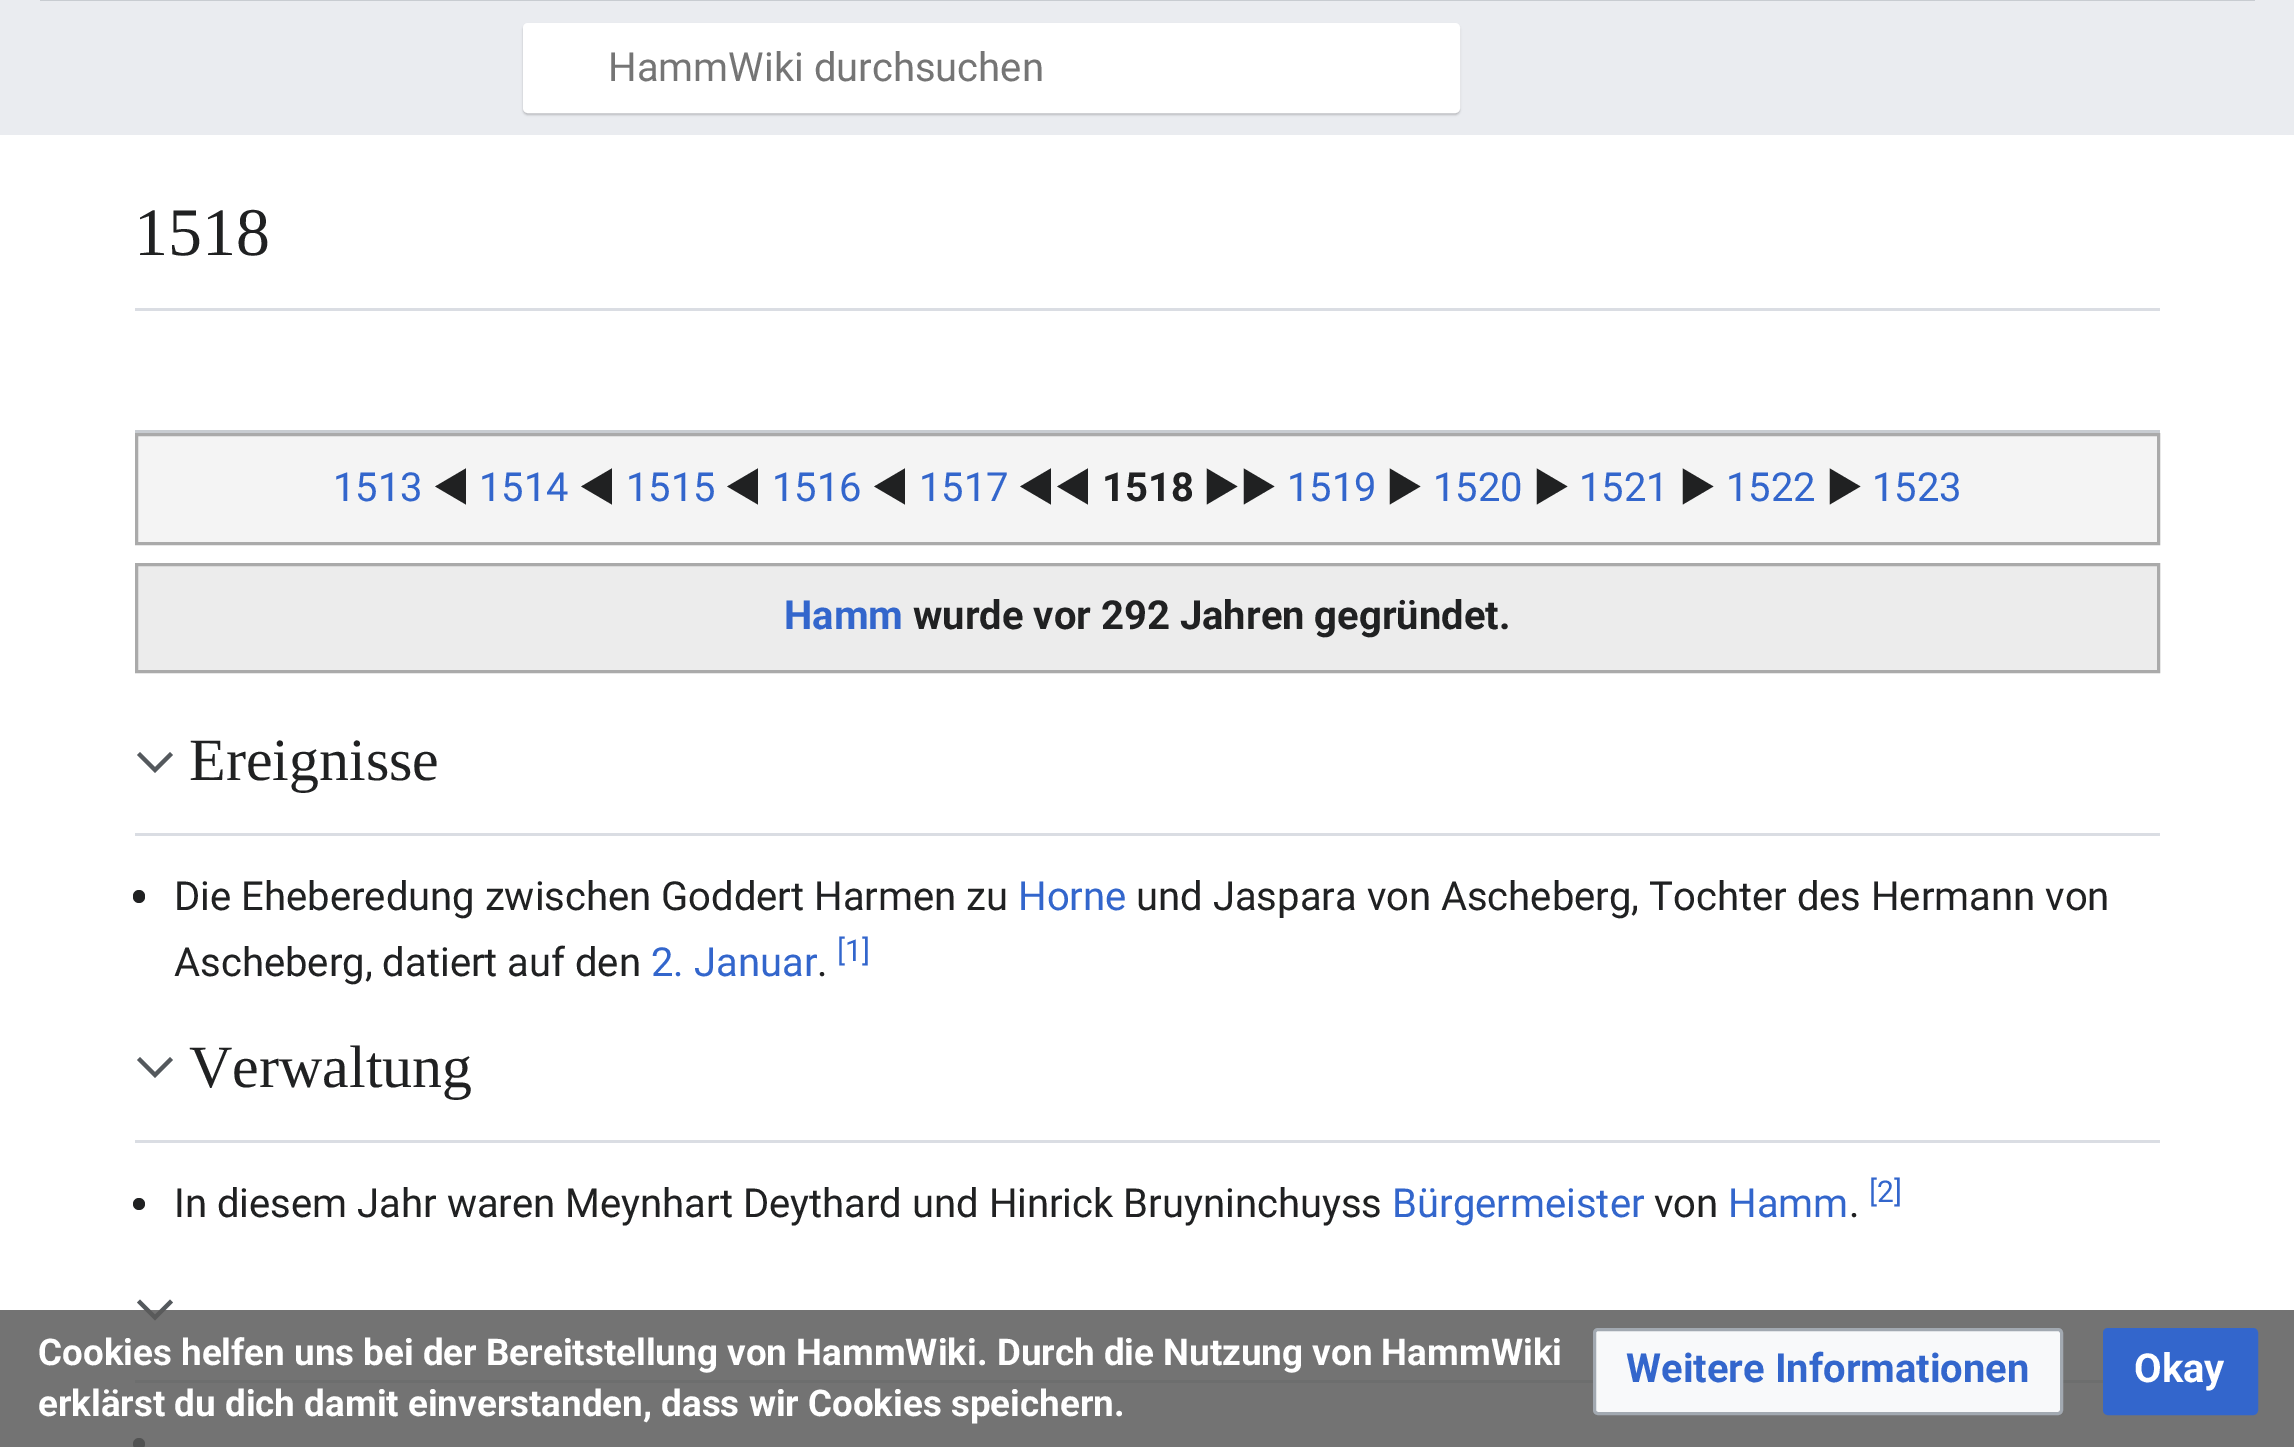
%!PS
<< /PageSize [2294 1447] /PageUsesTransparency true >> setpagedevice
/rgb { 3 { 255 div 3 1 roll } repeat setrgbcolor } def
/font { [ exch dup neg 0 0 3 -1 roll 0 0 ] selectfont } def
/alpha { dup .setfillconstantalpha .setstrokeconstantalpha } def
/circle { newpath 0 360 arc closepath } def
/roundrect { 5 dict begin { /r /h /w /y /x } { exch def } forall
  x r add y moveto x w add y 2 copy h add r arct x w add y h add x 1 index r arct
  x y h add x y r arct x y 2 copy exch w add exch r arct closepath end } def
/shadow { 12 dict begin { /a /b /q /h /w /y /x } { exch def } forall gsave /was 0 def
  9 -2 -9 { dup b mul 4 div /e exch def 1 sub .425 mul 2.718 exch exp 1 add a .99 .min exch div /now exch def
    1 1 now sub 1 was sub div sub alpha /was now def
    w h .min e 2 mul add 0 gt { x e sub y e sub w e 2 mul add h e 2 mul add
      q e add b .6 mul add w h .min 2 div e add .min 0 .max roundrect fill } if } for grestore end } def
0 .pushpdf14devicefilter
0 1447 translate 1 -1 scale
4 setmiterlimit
234 236 240 rgb
0 0 2294 1447 rectfill
200 204 209 rgb
40 0 2215 1 rectfill
0 0 0 rgb
523 25 937 90 5 1 0.2 shadow
255 255 255 rgb
524.5 24.5 934 87 3.5 roundrect gsave fill grestore
3 setlinewidth
stroke
[
  [0 135 2294 1312 255 255 255]
  [135 308 2025 3 218 221 227]
  [135 430 2025 3 200 204 209]
] { aload pop rgb rectfill } forall
244 244 244 rgb
136.5 434.5 moveto 2158.5 434.5 lineto 2158.5 543.5 lineto 136.5 543.5 lineto closepath gsave fill grestore
170 170 170 rgb
stroke
236 236 236 rgb
136.5 564.5 moveto 2158.5 564.5 lineto 2158.5 671.5 lineto 136.5 671.5 lineto closepath gsave fill grestore
170 170 170 rgb
stroke
218 221 227 rgb
135 833 2025 3 rectfill
84 89 93 rgb
170 752 moveto 155 767 lineto 140 752 lineto 137 755 lineto 155 773 lineto 173 755 lineto closepath fill
32 33 34 rgb
133 890 12 13 6 roundrect fill
218 221 227 rgb
135 1140 2025 3 rectfill
84 89 93 rgb
170 1057 moveto 155 1072 lineto 140 1057 lineto 137 1060 lineto 155 1078 lineto 173 1060 lineto closepath fill
32 33 34 rgb
139 1204 6 circle fill
218 221 227 rgb
135 1380 1968 3 rectfill
84 89 93 rgb
170 1299.5 moveto 155 1314.5 lineto 140 1299.5 lineto 137 1302.5 lineto 155 1320.5 lineto 173 1302.5 lineto closepath fill
32 33 34 rgb
139 1444 6 circle fill
0.85 alpha
90 90 90 rgb
0 1310 2294 137 rectfill
1 alpha
248 249 250 rgb
1594.5 1329.5 467 84 3.5 roundrect gsave fill grestore
162 169 177 rgb
stroke
51 102 204 rgb
2104.5 1329.5 152 84 3.5 roundrect gsave fill grestore
stroke
/Roboto-Regular 40 font
117 117 117 rgb
608 81 moveto (HammWiki durchsuchen) show
/LiberationSerif-Regular 68 font
32 33 34 rgb
134 255 moveto (1518) show
/Roboto-Regular 40 font
51 102 204 rgb
333 501 moveto (1513) show
/Inter-Regular 40 font
32 33 34 rgb
433 501 moveto (◄) show
/Roboto-Regular 40 font
51 102 204 rgb
479 501 moveto (1514) show
/Inter-Regular 40 font
32 33 34 rgb
579 501 moveto (◄) show
/Roboto-Regular 40 font
51 102 204 rgb
626 501 moveto (1515) show
/Inter-Regular 40 font
32 33 34 rgb
725 501 moveto (◄) show
/Roboto-Regular 40 font
51 102 204 rgb
772 501 moveto (1516) show
/Inter-Regular 40 font
32 33 34 rgb
872 501 moveto (◄) show
/Roboto-Regular 40 font
51 102 204 rgb
919 501 moveto (1517) show
/Inter-Regular 40 font
32 33 34 rgb
1018 501 moveto (◄◄) show
/Roboto-Bold 40 font
1102 501 moveto (1518) show
/Inter-Regular 40 font
1203 501 moveto (►►) show
/Roboto-Regular 40 font
51 102 204 rgb
1287 501 moveto (1519) show
/Inter-Regular 40 font
32 33 34 rgb
1386 501 moveto (►) show
/Roboto-Regular 40 font
51 102 204 rgb
1433 501 moveto (1520) show
/Inter-Regular 40 font
32 33 34 rgb
1533 501 moveto (►) show
/Roboto-Regular 40 font
51 102 204 rgb
1579 501 moveto (1521) show
/Inter-Regular 40 font
32 33 34 rgb
1679 501 moveto (►) show
/Roboto-Regular 40 font
51 102 204 rgb
1726 501 moveto (1522) show
/Inter-Regular 40 font
32 33 34 rgb
1826 501 moveto (►) show
/Roboto-Regular 40 font
51 102 204 rgb
1872 501 moveto (1523) show
/Roboto-Bold 40 font
784 629 moveto (Hamm) show
32 33 34 rgb
913 629 moveto (wurde vor 292 Jahren gegründet.) show
/LiberationSerif-Regular 60 font
189 780 moveto (Ereignisse) show
/Roboto-Regular 40 font
174 910 moveto (Die Eheberedung zwischen Goddert Harmen zu) show
51 102 204 rgb
1018 910 moveto (Horne) show
32 33 34 rgb
1136 910 moveto (und Jaspara von Ascheberg, Tochter des Hermann von) show
174 976 moveto (Ascheberg, datiert auf den) show
51 102 204 rgb
651 976 moveto (2. Januar) show
32 33 34 rgb
817 976 moveto (.) show
/Roboto-Regular 30 font
51 102 204 rgb
837 961 moveto ([1]) show
/LiberationSerif-Regular 60 font
32 33 34 rgb
189 1087 moveto (Verwaltung) show
/Roboto-Regular 40 font
174 1217 moveto (In diesem Jahr waren Meynhart Deythard und Hinrick Bruyninchuyss) show
51 102 204 rgb
1392 1217 moveto (Bürgermeister) show
32 33 34 rgb
1654 1217 moveto (von) show
51 102 204 rgb
1728 1217 moveto (Hamm) show
/Roboto-Regular 30 font
1869 1202 moveto ([2]) show
/Roboto-Regular 40 font
32 33 34 rgb
1849 1217 moveto (.) show
/Roboto-Bold 36.8 font
255 255 255 rgb
38 1365 moveto (Cookies helfen uns bei der Bereitstellung von HammWiki. Durch die Nutzung von HammWiki) show
38 1416 moveto (erklärst du dich damit einverstanden, dass wir Cookies speichern.) show
/Roboto-Bold 40 font
51 102 204 rgb
1626 1382 moveto (Weitere Informationen) show
255 255 255 rgb
2134 1382 moveto (Okay) show
.poppdf14devicefilter showpage
